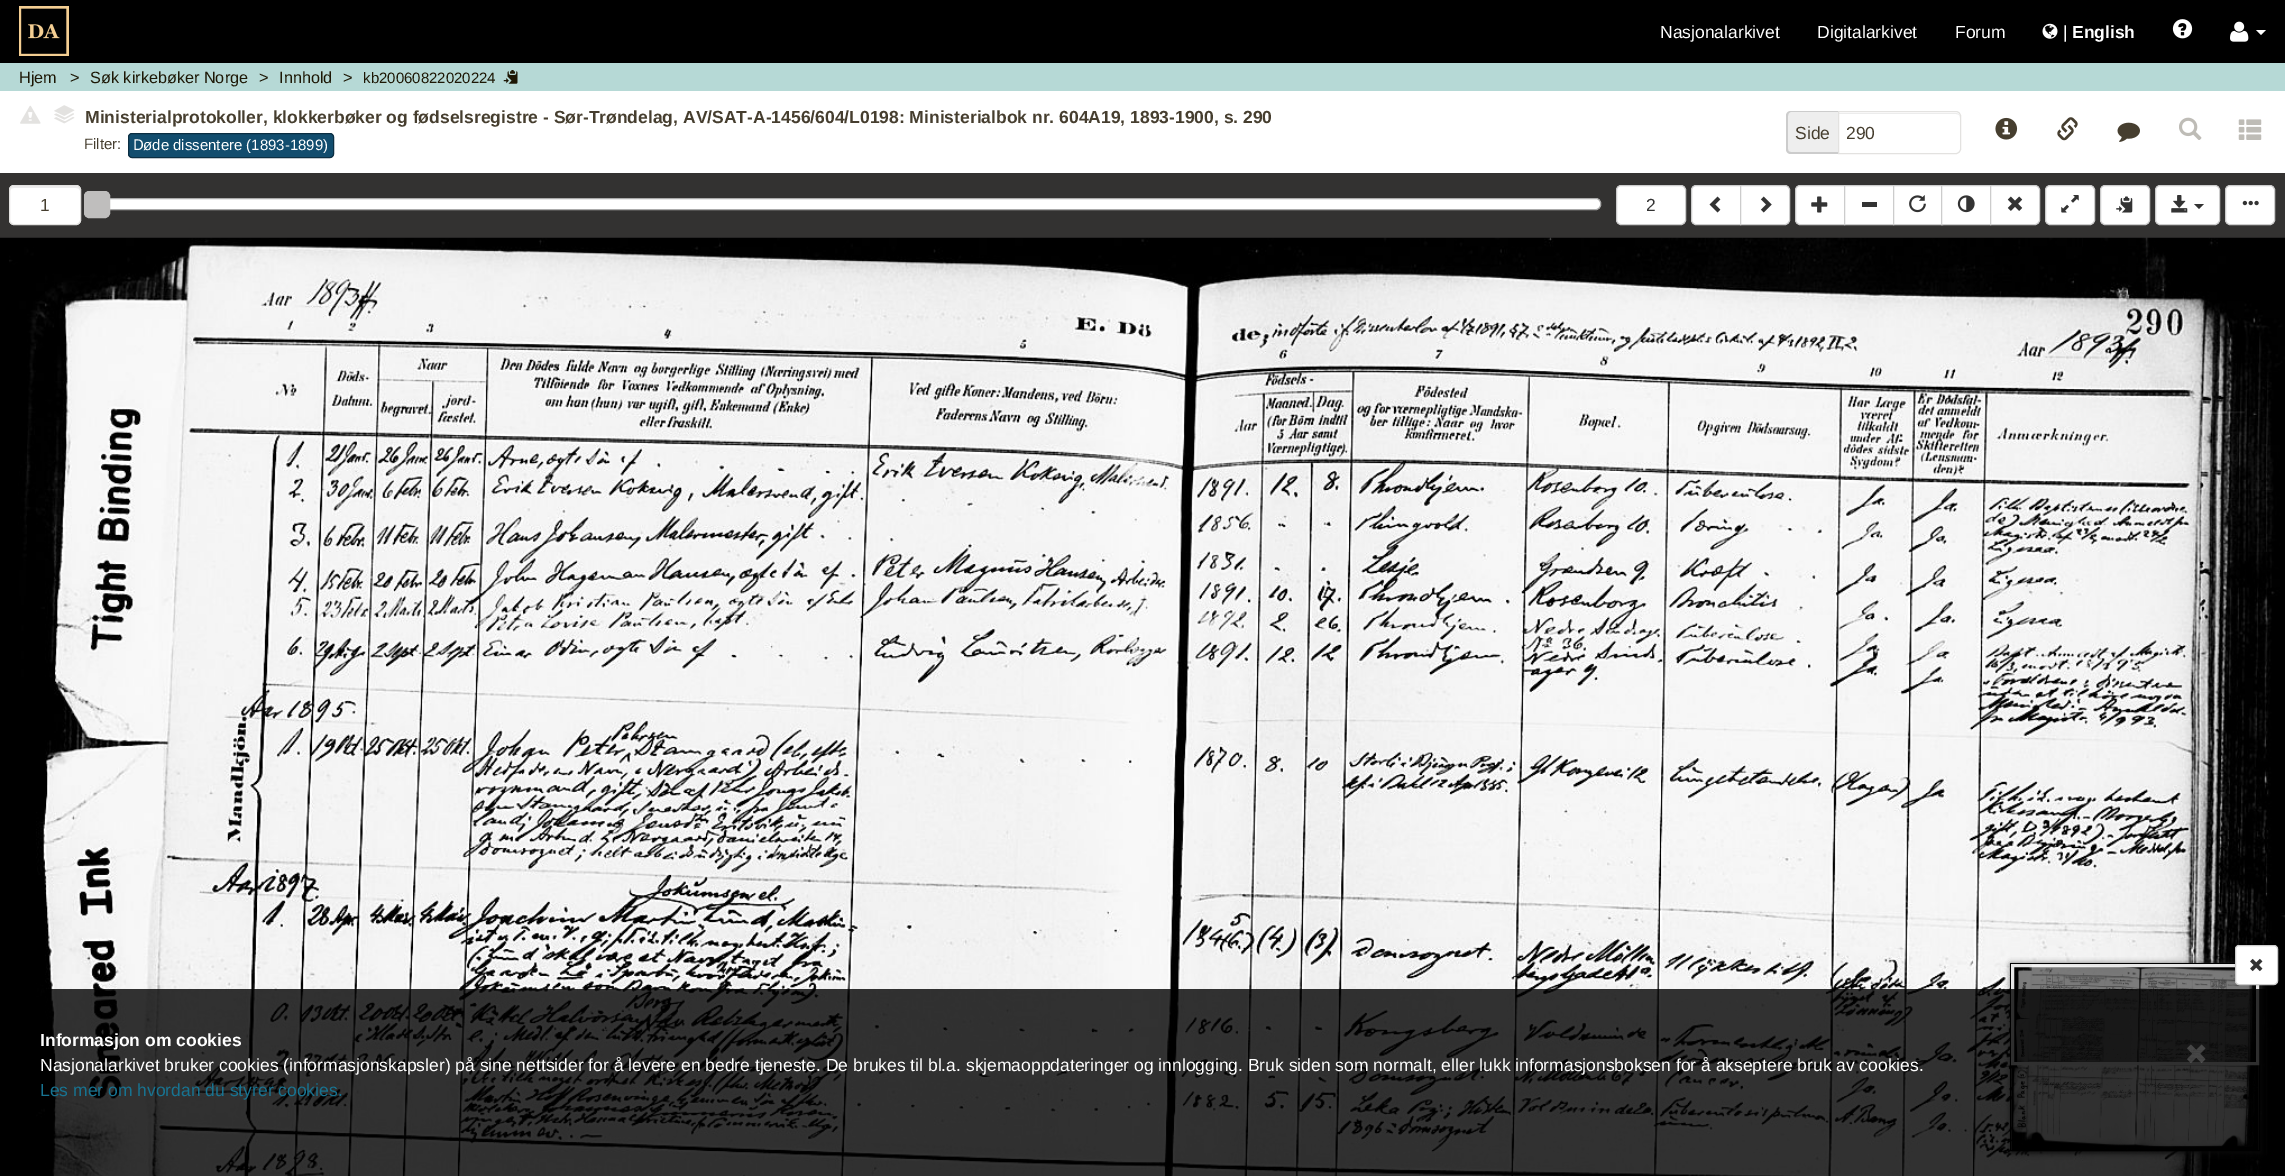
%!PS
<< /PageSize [2285 1176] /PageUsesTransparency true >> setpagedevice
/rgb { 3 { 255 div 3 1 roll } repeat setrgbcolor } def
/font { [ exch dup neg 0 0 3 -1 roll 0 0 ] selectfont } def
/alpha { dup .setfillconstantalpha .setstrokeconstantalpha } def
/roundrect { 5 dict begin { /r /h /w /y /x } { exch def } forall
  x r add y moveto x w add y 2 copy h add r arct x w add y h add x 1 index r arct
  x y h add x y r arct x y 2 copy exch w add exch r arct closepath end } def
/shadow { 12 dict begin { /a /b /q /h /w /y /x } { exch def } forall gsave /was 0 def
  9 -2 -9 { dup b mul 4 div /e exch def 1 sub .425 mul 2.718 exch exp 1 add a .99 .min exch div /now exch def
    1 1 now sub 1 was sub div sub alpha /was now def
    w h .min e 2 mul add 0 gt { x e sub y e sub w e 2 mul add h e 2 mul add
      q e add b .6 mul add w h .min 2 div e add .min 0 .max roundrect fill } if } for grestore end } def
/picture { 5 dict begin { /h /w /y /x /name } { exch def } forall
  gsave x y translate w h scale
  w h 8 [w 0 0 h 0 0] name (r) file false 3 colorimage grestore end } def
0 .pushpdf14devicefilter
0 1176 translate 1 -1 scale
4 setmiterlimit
182 217 214 rgb
0 0 2285 1176 rectfill
0 0 0 rgb
0 0 2285 63 rectfill
(img/1.rgb) 19 6 50 50 picture
(img/2.rgb) 2042 23 16 16 picture
(img/3.rgb) 2172 19 21 20 picture
(img/4.rgb) 2230 21 19 21 picture
255 255 255 rgb
2256 30 moveto 2266 30 lineto 2261 35 lineto closepath fill
(img/5.rgb) 503 70 15 14 picture
0 91 2285 82 rectfill
(img/6.rgb) 20 105 21 19 picture
(img/11.rgb) 54 116 21 8 picture
(img/10.rgb) 56 115 17 6 picture
(img/9.rgb) 54 113 20 7 picture
(img/8.rgb) 56 111 17 7 picture
(img/7.rgb) 54 105 21 11 picture
18 77 110 rgb
128.5 133.5 205 24 3.5 roundrect gsave fill grestore
11 46 66 rgb
stroke
238 238 238 rgb
1791 111 moveto 1838 111 lineto 1838 154 lineto 1791 154 lineto 1788 154 1786 152 1786 149 curveto 1786 116 lineto 1786 113 1788 111 1791 111 curveto closepath fill
204 204 204 rgb
1791 111 moveto 1838 111 lineto 1838 154 lineto 1791 154 lineto 1788 154 1786 152 1786 149 curveto 1786 116 lineto 1786 113 1788 111 1791 111 curveto closepath 1791 112 moveto 1838 112 lineto 1838 152 lineto 1791 152 lineto 1789 152 1788 151 1788 149 curveto 1788 116 lineto 1788 114 1789 112 1791 112 curveto closepath eofill
236 236 236 rgb
1839 114 moveto 1956 114 lineto 1958 114 1960 115 1960 118 curveto 1960 117 lineto 1960 115 1958 113 1956 113 curveto 1839 113 lineto closepath fill
227 226 224 rgb
1838.5 111.5 moveto 1956 111.5 lineto 1958.5 111.5 1960.5 113.5 1960.5 116 curveto 1960.5 149 lineto 1960.5 151.5 1958.5 153.5 1956 153.5 curveto 1838.5 153.5 lineto closepath stroke
(img/12.rgb) 1995 117 23 23 picture
(img/13.rgb) 2057 117 21 24 picture
(img/14.rgb) 2117 122 23 20 picture
(img/15.rgb) 2179 117 23 23 picture
(img/16.rgb) 2238 119 24 21 picture
51 50 49 rgb
0 173 2285 65 rectfill
255 255 255 rgb
9 185 72 40 5 roundrect fill
236 236 236 rgb
14 188 moveto 76 188 lineto 78 188 80 189 80 191 curveto 80 184 71 186 66 186 curveto 24 186 lineto 19 186 10 184 10 191 curveto 10 189 12 188 14 188 curveto closepath fill
227 226 224 rgb
9.5 185.5 71 39 4.5 roundrect stroke
255 255 255 rgb
94.5 198.5 1506 11 4.5 roundrect gsave fill grestore
170 170 170 rgb
stroke
191 190 189 rgb
84.5 191.5 25 26 4.5 roundrect gsave fill grestore
stroke
255 255 255 rgb
1616.5 185.5 69 39 4.5 roundrect gsave fill grestore
204 204 204 rgb
stroke
255 255 255 rgb
1696 185.5 moveto 1740.5 185.5 lineto 1740.5 224.5 lineto 1696 224.5 lineto 1693.5 224.5 1691.5 222.5 1691.5 220 curveto 1691.5 190 lineto 1691.5 187.5 1693.5 185.5 1696 185.5 curveto closepath gsave fill grestore
204 204 204 rgb
stroke
(img/17.rgb) 1709 196 12 17 picture
255 255 255 rgb
1740.5 185.5 moveto 1785 185.5 lineto 1787.5 185.5 1789.5 187.5 1789.5 190 curveto 1789.5 220 lineto 1789.5 222.5 1787.5 224.5 1785 224.5 curveto 1740.5 224.5 lineto closepath gsave fill grestore
204 204 204 rgb
stroke
(img/18.rgb) 1760 196 12 17 picture
255 255 255 rgb
1800 185.5 moveto 1844.5 185.5 lineto 1844.5 224.5 lineto 1800 224.5 lineto 1797.5 224.5 1795.5 222.5 1795.5 220 curveto 1795.5 190 lineto 1795.5 187.5 1797.5 185.5 1800 185.5 curveto closepath gsave fill grestore
204 204 204 rgb
stroke
(img/19.rgb) 1811 196 17 17 picture
255 255 255 rgb
1844.5 185.5 moveto 1893.5 185.5 lineto 1893.5 224.5 lineto 1844.5 224.5 lineto closepath gsave fill grestore
204 204 204 rgb
stroke
51 51 51 rgb
1862 202 15 5 rectfill
255 255 255 rgb
1894 186 47 38 rectfill
204 204 204 rgb
1893.5 185.5 49 39 rectstroke
(img/20.rgb) 1909 195 17 18 picture
255 255 255 rgb
1941.5 185.5 moveto 1990.5 185.5 lineto 1990.5 224.5 lineto 1941.5 224.5 lineto closepath gsave fill grestore
204 204 204 rgb
stroke
(img/21.rgb) 1957 195 18 18 picture
255 255 255 rgb
1990.5 185.5 moveto 2035 185.5 lineto 2037.5 185.5 2039.5 187.5 2039.5 190 curveto 2039.5 220 lineto 2039.5 222.5 2037.5 224.5 2035 224.5 curveto 1990.5 224.5 lineto closepath gsave fill grestore
204 204 204 rgb
stroke
(img/22.rgb) 2007 196 16 15 picture
255 255 255 rgb
2045.5 185.5 49 39 4.5 roundrect gsave fill grestore
204 204 204 rgb
stroke
(img/23.rgb) 2061 195 18 18 picture
255 255 255 rgb
2100.5 185.5 49 39 4.5 roundrect gsave fill grestore
204 204 204 rgb
stroke
(img/24.rgb) 2116 196 17 17 picture
255 255 255 rgb
2155.5 185.5 64 39 4.5 roundrect gsave fill grestore
204 204 204 rgb
stroke
(img/25.rgb) 2171 195 17 18 picture
51 51 51 rgb
2194 204 moveto 2204 204 lineto 2199 209 lineto closepath fill
255 255 255 rgb
2225.5 185.5 49 39 4.5 roundrect gsave fill grestore
204 204 204 rgb
stroke
(img/26.rgb) 2242 200 17 6 picture
(img/27.rgb) 0 237 2285 939 picture
50 50 50 rgb
2011 964 250 189 0 3 1 shadow
0 0 0 rgb
2010.5 963.5 249 187 rectstroke
(img/29.rgb) 2011 963 247 187 picture
0.5 alpha
2011 964 248 101 rectfill
0.9 alpha
255 255 255 rgb
3 setlinewidth
2012.5 965.5 245 98 rectstroke
1 alpha
0 0 0 rgb
2235 946 43 40 4 0.5 0.1 shadow
255 255 255 rgb
2235.5 945.5 42 39 3.5 roundrect gsave fill grestore
204 204 204 rgb
1 setlinewidth
stroke
(img/28.rgb) 2250 958 13 14 picture
0.8 alpha
0 0 0 rgb
42 989 2224 187 rectfill
1 alpha
(img/30.rgb) 2187 1044 19 19 picture
/LiberationSans-Regular 17.5 font
255 255 255 rgb
[
  [(Nasjonalarkivet) 1660 38]
  [(Digitalarkivet) 1817 38]
  [(Forum) 1955 38]
  [(|) 2063 38]
] { aload pop moveto show } forall
/LiberationSans-Bold 17.5 font
2072 38 moveto (English) show
/LiberationSans-Regular 16.25 font
29 23 5 rgb
[
  [(Hjem) 19 83]
  [(>) 70 83]
  [(Søk kirkebøker Norge) 90 83]
  [(>) 259 83]
  [(Innhold) 279 83]
  [(>) 343 83]
] { aload pop moveto show } forall
/LiberationSans-Regular 15 font
363 83 moveto (kb20060822020224) show
/LiberationSans-Bold 17.5 font
70 62 47 rgb
85 123 moveto (Ministerialprotokoller, klokkerbøker og fødselsregistre - Sør-Trøndelag, AV/SAT-A-1456/604/L0198: Ministerialbok nr. 604A19, 1893-1900, s. 290) show
/LiberationSans-Regular 15 font
84 149 moveto (Filter:) show
/NotoSans-Regular 15 font
255 255 255 rgb
133 150 moveto (D) show
/LiberationSans-Regular 15 font
143 150 moveto (øde dissentere \(1893-1899\)) show
/LiberationSans-Regular 17.5 font
70 62 47 rgb
[
  [(Side) 1795 139]
  [(290) 1846 139]
  [(1) 40 211]
] { aload pop moveto show } forall
51 51 51 rgb
1646 211 moveto (2) show
/LiberationSans-Bold 17.5 font
255 255 255 rgb
40 1046 moveto (Informasjon om cookies) show
/LiberationSans-Regular 17.5 font
40 1071 moveto (Nasjonalarkivet bruker cookies \(informasjonskapsler\) på sine nettsider for å levere en bedre tjeneste. De brukes til bl.a. skjemaoppdateringer og innlogging. Bruk siden som normalt, eller lukk informasjonsboksen for å akseptere bruk av cookies.) show
23 115 145 rgb
40 1096 moveto (Les mer om hvordan du styrer cookies.) show
.poppdf14devicefilter showpage
